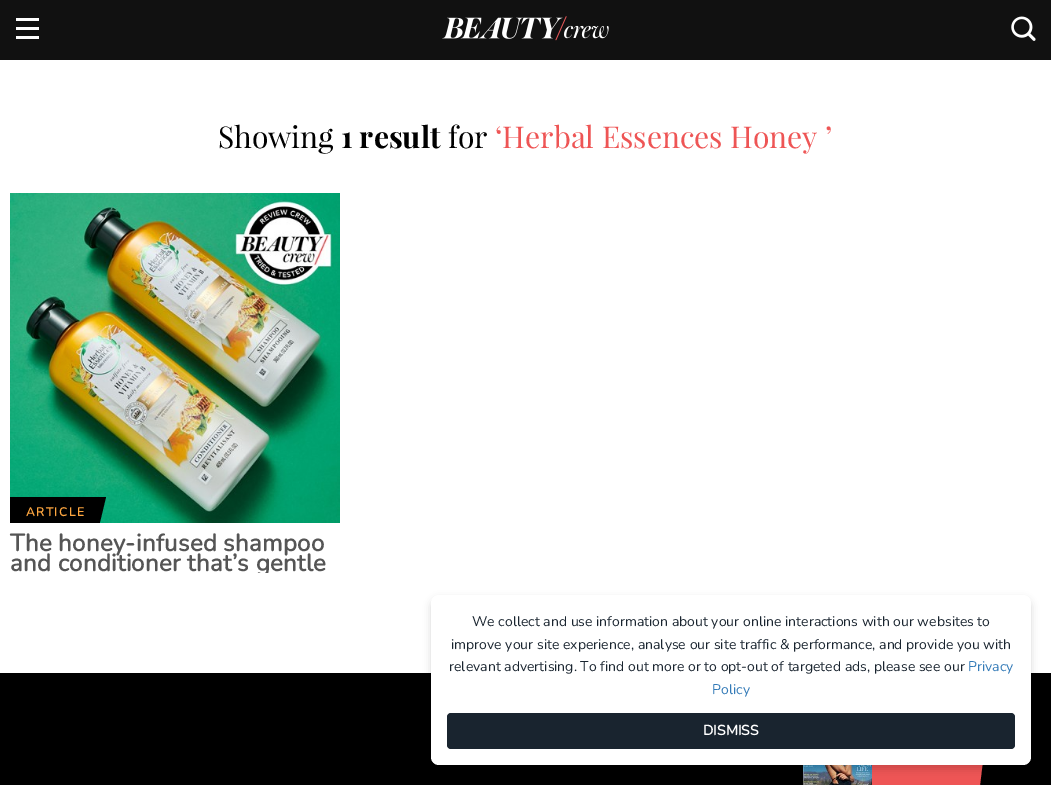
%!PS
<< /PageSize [1051 785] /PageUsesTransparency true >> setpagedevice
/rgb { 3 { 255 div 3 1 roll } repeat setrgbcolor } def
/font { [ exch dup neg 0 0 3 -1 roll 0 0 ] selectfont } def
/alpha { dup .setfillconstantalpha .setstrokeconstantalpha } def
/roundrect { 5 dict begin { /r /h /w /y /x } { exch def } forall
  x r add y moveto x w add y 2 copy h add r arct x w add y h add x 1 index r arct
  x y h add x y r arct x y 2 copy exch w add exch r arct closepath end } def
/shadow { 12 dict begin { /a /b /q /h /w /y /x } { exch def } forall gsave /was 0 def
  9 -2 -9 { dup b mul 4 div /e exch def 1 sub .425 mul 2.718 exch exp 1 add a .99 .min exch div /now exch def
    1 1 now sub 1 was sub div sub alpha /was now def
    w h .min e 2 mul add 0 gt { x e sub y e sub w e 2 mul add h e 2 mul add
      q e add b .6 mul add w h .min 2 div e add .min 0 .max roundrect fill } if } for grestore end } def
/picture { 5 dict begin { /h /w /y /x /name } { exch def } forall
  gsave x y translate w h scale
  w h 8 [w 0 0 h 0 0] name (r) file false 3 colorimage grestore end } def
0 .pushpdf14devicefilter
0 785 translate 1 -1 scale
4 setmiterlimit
255 255 255 rgb
0 0 1051 785 rectfill
[
  [0 0 1051 60 17 17 17]
  [16 18 23 3 255 255 255]
  [16 27 23 3 255 255 255]
  [16 36 23 3 255 255 255]
] { aload pop rgb rectfill } forall
(img/1.rgb) 442 16 167 25 picture
(img/2.rgb) 1011 16 25 25 picture
(img/3.rgb) 10 193 330 330 picture
0 0 0 rgb
10 497 90 26 rectfill
96 497 moveto 106 497 lineto 100 522 lineto 96 522 lineto closepath fill
0 673 1051 112 rectfill
(img/4.rgb) 803 765 69 20 picture
238 85 85 rgb
872 765 101 20 rectfill
973 760 moveto 983 760 lineto 977 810 lineto 973 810 lineto closepath fill
0 0 0 rgb
431 599 600 170 8 4 0.15 shadow
255 255 255 rgb
431 595 600 170 8 roundrect fill
25 36 47 rgb
447 713 568 36 4 roundrect fill
/PlayfairDisplay-Regular 30 font
0 0 0 rgb
218 148 moveto (Showing) show
/PlayfairDisplay-Bold 30 font
341 148 moveto (1 result) show
/PlayfairDisplay-Regular 30 font
448 148 moveto (for) show
238 85 85 rgb
495 148 moveto (‘Herbal Essences Honey ’) show
/Nunito-Bold 12 font
255 167 64 rgb
26 516 moveto 1.5 0 (ARTICLE) ashow
/Nunito-Bold 24 font
85 85 85 rgb
10 551 moveto 0.3 0 (The honey-infused shampoo) ashow
gsave
10 523 330 50 rectclip
10 571 moveto 0.3 0 (and conditioner that’s gentle) ashow
grestore
/Nunito-Regular 14 font
25 36 47 rgb
[
  [(We collect and use information about your online interactions with our websites to) 472 626]
  [(improve your site experience, analyse our site traffic & performance, and provide you with) 451 649]
  [(relevant advertising. To find out more or to opt-out of targeted ads, please see our) 449 671]
] { aload pop moveto show } forall
51 122 183 rgb
968 671 moveto (Privacy) show
712 694 moveto (Policy) show
/Nunito-Bold 14 font
255 255 255 rgb
703 735 moveto (DISMISS) show
.poppdf14devicefilter showpage
